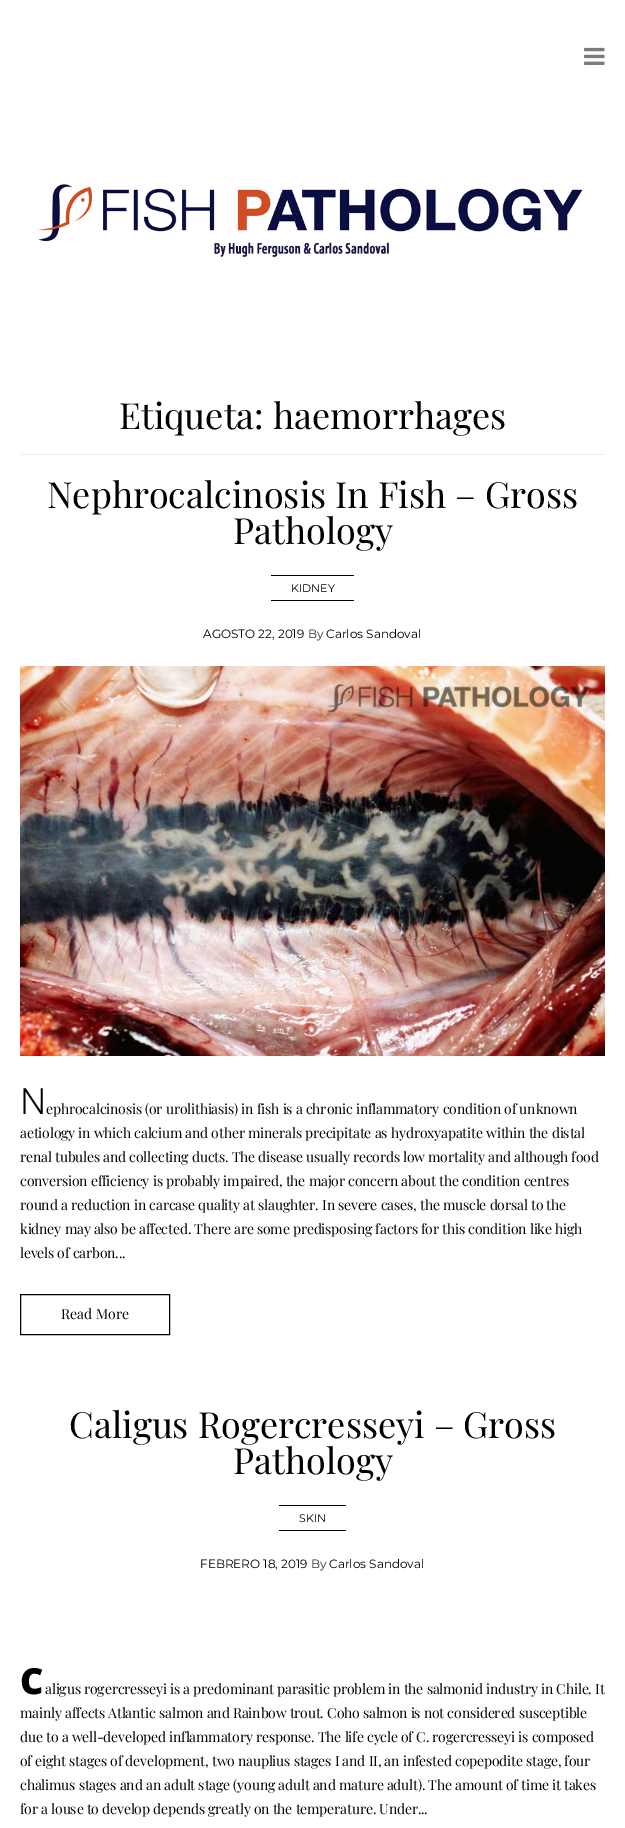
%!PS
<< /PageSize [625 1828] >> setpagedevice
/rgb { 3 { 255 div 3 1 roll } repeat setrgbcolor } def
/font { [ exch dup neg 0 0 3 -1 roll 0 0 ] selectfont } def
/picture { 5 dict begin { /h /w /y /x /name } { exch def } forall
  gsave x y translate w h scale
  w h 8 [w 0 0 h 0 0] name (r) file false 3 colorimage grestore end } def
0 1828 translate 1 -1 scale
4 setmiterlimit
255 255 255 rgb
0 0 625 1828 rectfill
(img/1.rgb) 584 47 21 18 picture
(img/2.rgb) 38 184 545 73 picture
[
  [20 454 585 1 238 238 238]
  [271 575 83 1 0 0 0]
  [271 600 83 1 0 0 0]
] { aload pop rgb rectfill } forall
(img/3.rgb) 20 666 585 390 picture
20.5 1294.5 149 40 rectstroke
279 1505 67 1 rectfill
279 1530 67 1 rectfill
/PlayfairDisplay-Regular 36 font
[
  [(Etiqueta: haemorrhages) 119 429]
  [(Nephrocalcinosis In Fish – Gross) 47 508]
  [(Pathology) 233 544]
] { aload pop moveto show } forall
/Montserrat-Regular 11 font
291 592 moveto (KIDNEY) show
/Montserrat-Regular 12 font
203 638 moveto (AGOSTO 22, 2019) show
51 51 51 rgb
308 638 moveto (By) show
0 0 0 rgb
326 638 moveto (Carlos Sandoval) show
/NotoSans-Light 36 font
20 1114 moveto -0.2 0 (N) ashow
/PlayfairDisplay-Regular 14 font
46 1114 moveto -0.2 0 (ephrocalcinosis \(or urolithiasis\) in fish is a chronic inflammatory condition of unknown) ashow
20 1138 moveto -0.2 0 (aetiology in which calcium and other minerals precipitate as hydroxyapatite within the distal) ashow
20 1162 moveto -0.2 0 (renal tubules and collecting ducts. The disease usually records low mortality and although food) ashow
20 1186 moveto -0.2 0 (conversion efficiency is probably impaired, the major concern about the condition centres) ashow
20 1210 moveto -0.2 0 (round a reduction in carcase quality at slaughter. In severe cases, the muscle dorsal to the) ashow
20 1234 moveto -0.2 0 (kidney may also be affected. There are some predisposing factors for this condition like high) ashow
20 1258 moveto -0.2 0 (levels of carbon...) ashow
61 1319 moveto (Read More) show
/PlayfairDisplay-Regular 36 font
69 1438 moveto (Caligus Rogercresseyi – Gross) show
233 1474 moveto (Pathology) show
/Montserrat-Regular 11 font
299 1522 moveto (SKIN) show
/Montserrat-Regular 12 font
200 1568 moveto (FEBRERO 18, 2019) show
51 51 51 rgb
311 1568 moveto (By) show
0 0 0 rgb
329 1568 moveto (Carlos Sandoval) show
/NotoSans-Black 36 font
20 1694 moveto -0.2 0 (C) ashow
/PlayfairDisplay-Regular 14 font
45 1694 moveto -0.2 0 (aligus rogercresseyi is a predominant parasitic problem in the salmonid industry in Chile. It) ashow
20 1718 moveto -0.2 0 (mainly affects Atlantic salmon and Rainbow trout. Coho salmon is not considered susceptible) ashow
20 1742 moveto -0.2 0 (due to a well-developed inflammatory response. The life cycle of C. rogercresseyi is composed) ashow
20 1766 moveto -0.2 0 (of eight stages of development, two nauplius stages I and II, an infested copepodite stage, four) ashow
20 1790 moveto -0.2 0 (chalimus stages and an adult stage \(young adult and mature adult\). The amount of time it takes) ashow
20 1814 moveto -0.2 0 (for a louse to develop depends greatly on the temperature. Under...) ashow
showpage
